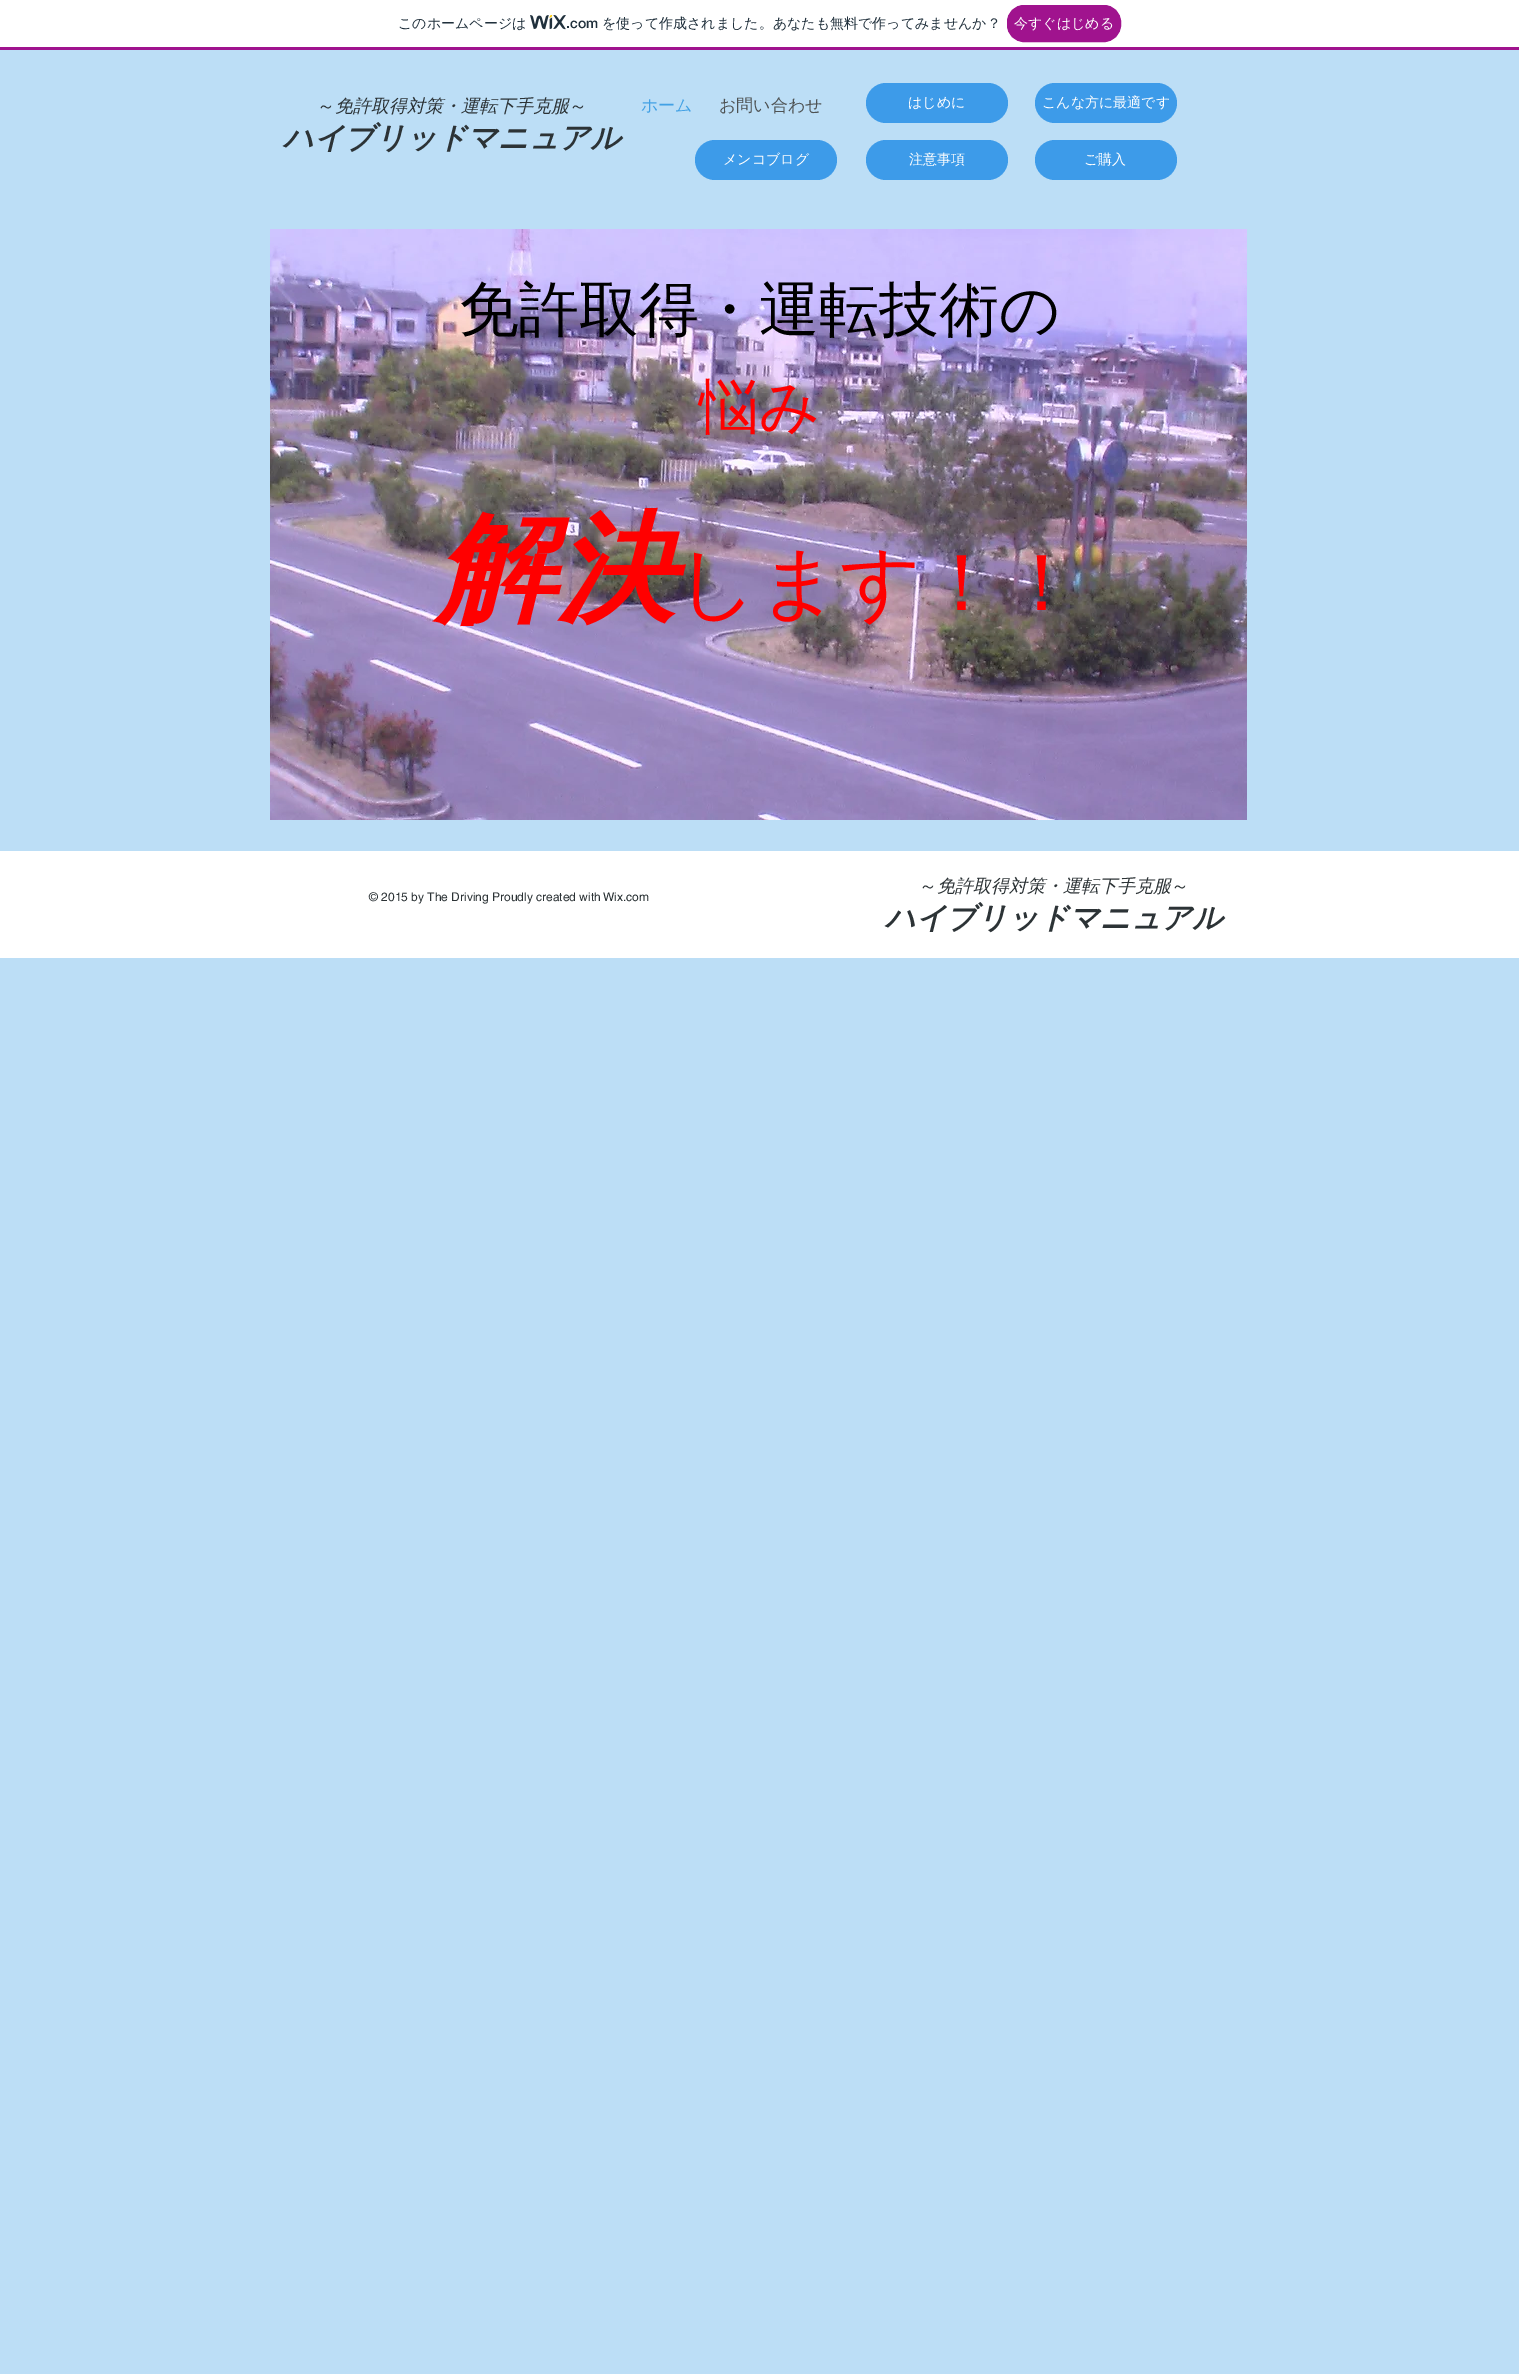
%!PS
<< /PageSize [1519 2374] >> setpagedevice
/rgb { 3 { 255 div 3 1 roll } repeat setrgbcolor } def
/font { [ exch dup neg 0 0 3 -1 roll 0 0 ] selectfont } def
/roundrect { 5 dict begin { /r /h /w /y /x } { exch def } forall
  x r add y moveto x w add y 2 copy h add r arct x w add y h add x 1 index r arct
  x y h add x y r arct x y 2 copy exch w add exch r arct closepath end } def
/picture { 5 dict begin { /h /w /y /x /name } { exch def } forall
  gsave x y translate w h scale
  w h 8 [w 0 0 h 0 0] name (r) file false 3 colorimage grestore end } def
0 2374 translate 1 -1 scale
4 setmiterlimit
255 255 255 rgb
0 0 1519 2374 rectfill
160 19 142 rgb
0 47 1519 3 rectfill
(img/1.rgb) 530 15 36 15 picture
1007.5 5.5 113 36 16.5 roundrect gsave fill grestore
stroke
188 222 246 rgb
0 50 1519 2324 rectfill
61 155 233 rgb
866 83 142 40 20 roundrect fill
1035 83 142 40 20 roundrect fill
695 140 142 40 20 roundrect fill
866 140 142 40 20 roundrect fill
1035 140 142 40 20 roundrect fill
(img/2.rgb) 270 229 977 591 picture
255 255 255 rgb
0 851 1519 107 rectfill
/WenQuanYiZenHei-Medium 14 font
32 48 60 rgb
398 28 moveto (このホームページは) show
/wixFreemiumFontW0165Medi-Medium 14 font
566 28 moveto (.com) show
/WenQuanYiZenHei-Medium 14 font
602 28 moveto (を使って作成されました。あなたも無料で作ってみませんか？) show
255 255 255 rgb
1014 28 moveto (今すぐはじめる) show
/WenQuanYiZenHei-Medium 18 font
44 51 54 rgb
317 112 moveto (～) show
/WenQuanYiZenHei-MediumItalic 18 font
335 112 moveto (免許取得対策・運転下手克服) show
/WenQuanYiZenHei-Medium 18 font
569 112 moveto (～) show
/WenQuanYiZenHei-BoldItalic 30 font
283 148 moveto (ハイブリッドマニュアル) show
/WenQuanYiZenHei-Medium 17 font
66 161 229 rgb
641 111 moveto (ホーム) show
78 82 83 rgb
719 111 moveto (お問い合わせ) show
/WenQuanYiZenHei-Medium 14 font
255 255 255 rgb
[
  [(はじめに) 908 107]
  [(こんな方に最適です) 1042 107]
  [(メンコブログ) 723 164]
  [(注意事項) 909 164]
  [(ご購入) 1084 164]
] { aload pop moveto show } forall
/WenQuanYiZenHei-Medium 60 font
0 0 0 rgb
459 330 moveto (免許取得・運転技術の) show
255 0 0 rgb
699 427 moveto (悩み) show
/WenQuanYiZenHei-BoldItalic 120 font
436 610 moveto (解決) show
/WenQuanYiZenHei-Medium 80 font
676 610 moveto (します！！) show
/helvetica-Regular 12 font
44 51 54 rgb
369 901 moveto (© 2015 by The Driving Proudly created with) show
36 44 47 rgb
603 901 moveto (Wix.com) show
/WenQuanYiZenHei-Medium 18 font
44 51 54 rgb
919 892 moveto (～) show
/WenQuanYiZenHei-MediumItalic 18 font
937 892 moveto (免許取得対策・運転下手克服) show
/WenQuanYiZenHei-Medium 18 font
1171 892 moveto (～) show
/WenQuanYiZenHei-BoldItalic 30 font
885 928 moveto (ハイブリッドマニュアル) show
showpage
